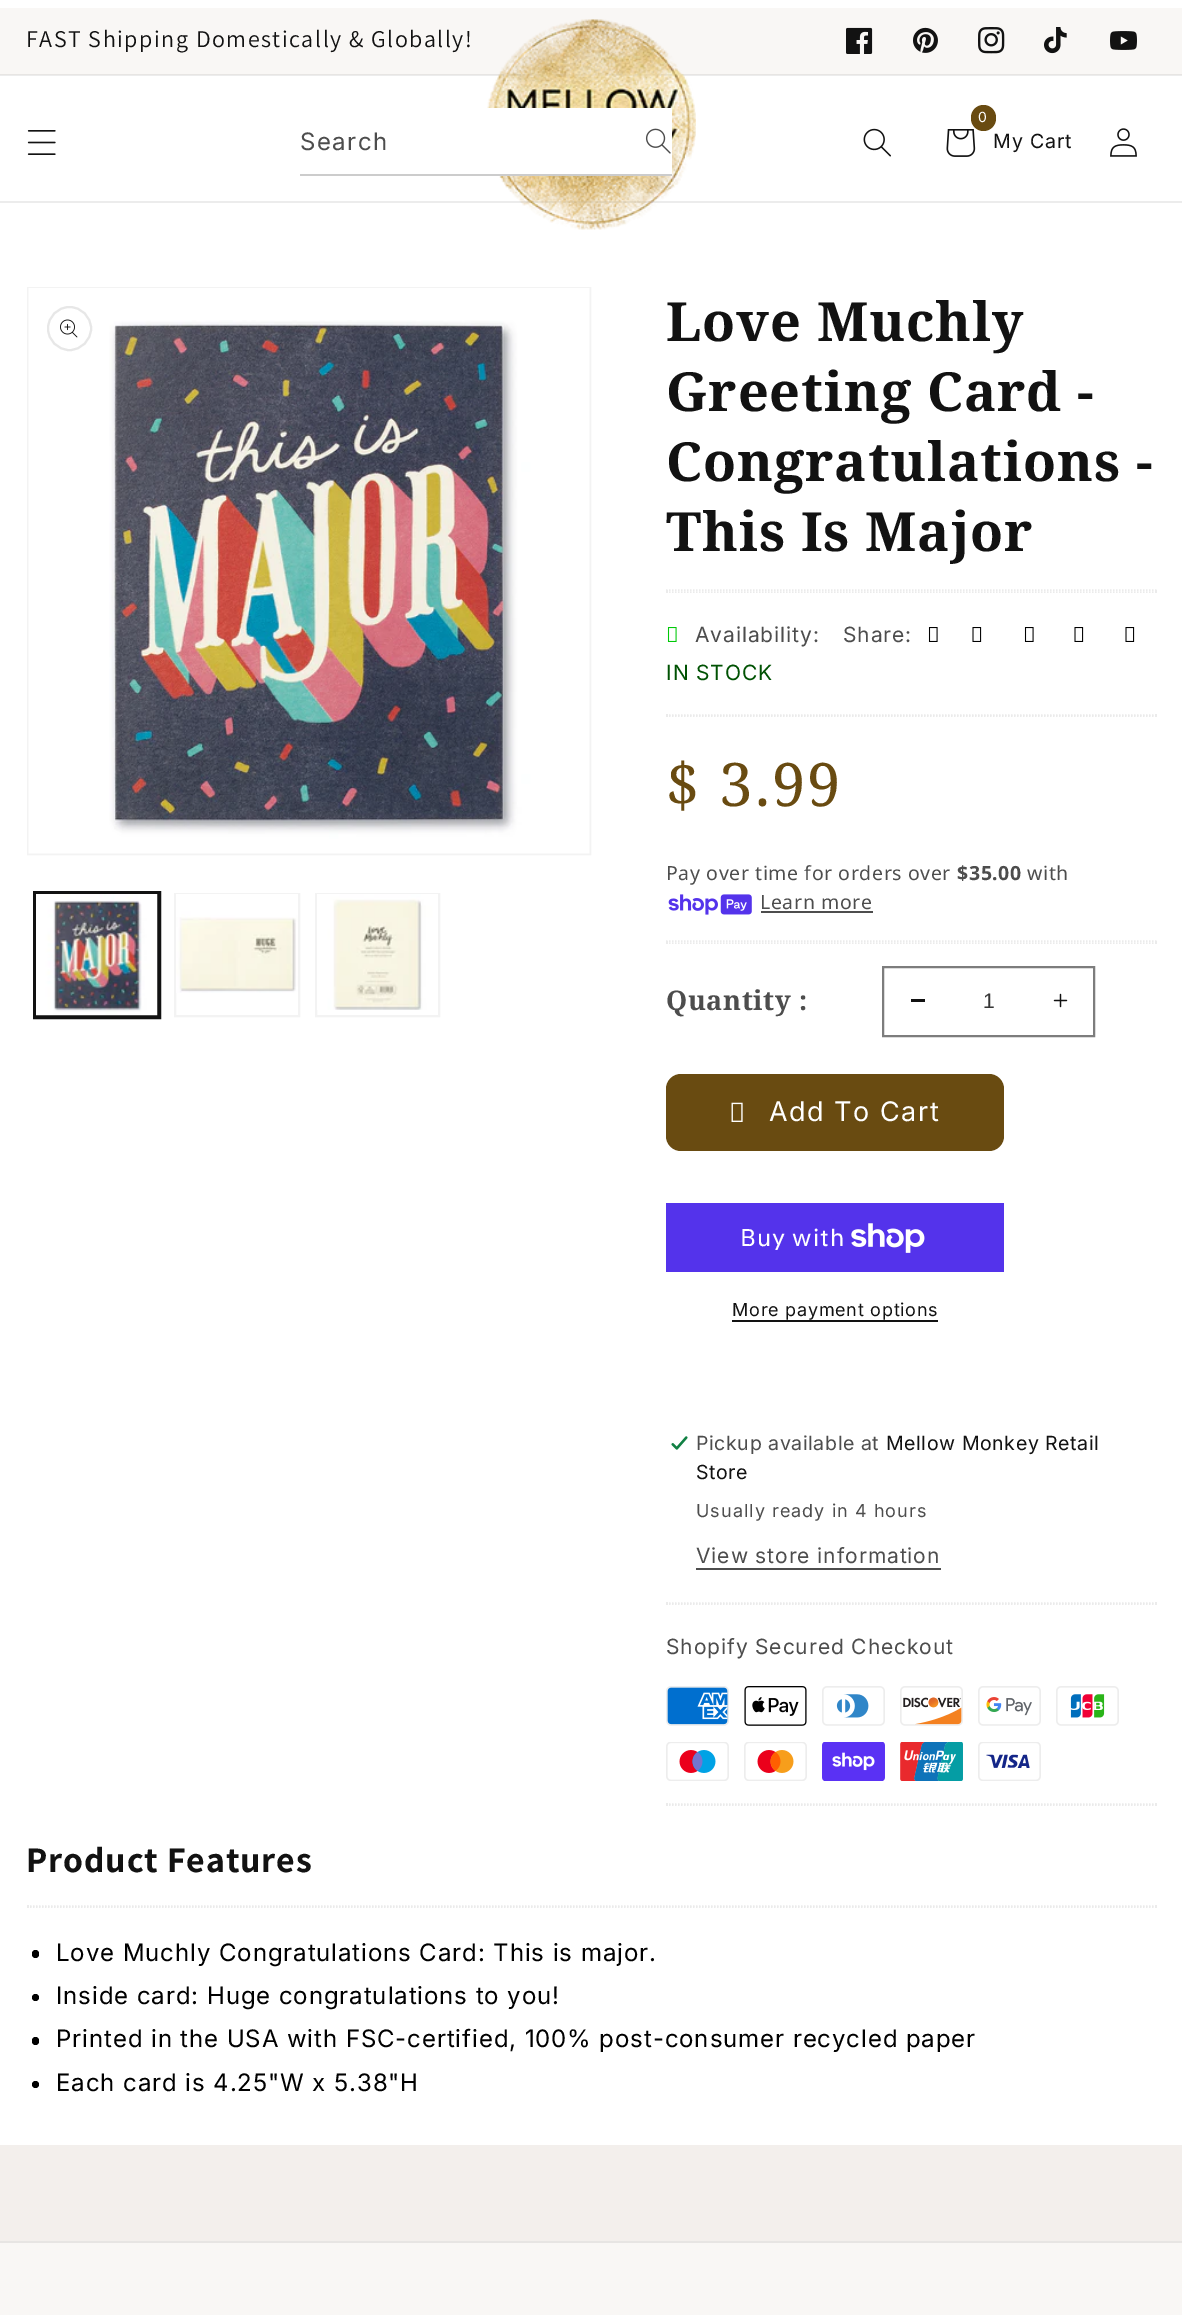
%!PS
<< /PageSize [1182 2315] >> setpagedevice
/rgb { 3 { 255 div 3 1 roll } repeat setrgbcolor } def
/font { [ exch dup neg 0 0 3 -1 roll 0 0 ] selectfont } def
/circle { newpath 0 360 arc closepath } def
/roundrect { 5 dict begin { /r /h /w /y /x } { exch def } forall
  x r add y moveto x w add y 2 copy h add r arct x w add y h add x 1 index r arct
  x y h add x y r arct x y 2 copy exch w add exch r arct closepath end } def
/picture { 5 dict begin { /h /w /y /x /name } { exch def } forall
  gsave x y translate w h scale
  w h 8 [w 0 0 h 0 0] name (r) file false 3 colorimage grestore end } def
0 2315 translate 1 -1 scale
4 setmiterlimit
255 255 255 rgb
0 0 1182 2315 rectfill
[
  [0 75 1182 1 236 236 236]
  [0 8 1182 66 249 247 245]
  [0 74 1182 1 231 229 227]
] { aload pop rgb rectfill } forall
(img/1.rgb) 846 27 27 27 picture
(img/2.rgb) 913 27 25 26 picture
(img/3.rgb) 978 27 27 27 picture
(img/4.rgb) 1044 27 23 27 picture
(img/5.rgb) 1110 31 27 19 picture
236 236 236 rgb
0 201 1182 2 rectfill
(img/6.rgb) 27 130 29 25 picture
(img/8.rgb) 487 19 209 211 picture
255 255 255 rgb
487 108 185 66 rectfill
204 204 204 rgb
300 174 372 2 rectfill
(img/7.rgb) 645 128 26 26 picture
(img/9.rgb) 863 128 28 29 picture
(img/10.rgb) 946 129 30 28 picture
105 75 17 rgb
971 105 25 26 12.5 roundrect fill
(img/11.rgb) 1110 128 27 29 picture
243 243 243 rgb
2 setlinewidth
28 288 562 566 rectstroke
(img/12.rgb) 28 288 562 566 picture
231 231 231 rgb
69.5 328.5 21.5 circle stroke
(img/13.rgb) 60 319 18 19 picture
18 18 18 rgb
34 892 126 126 rectstroke
36 894 122 122 rectstroke
(img/14.rgb) 36 894 122 122 picture
243 243 243 rgb
175 894 124 122 rectstroke
(img/15.rgb) 176 894 122 99 picture
316 894 123 122 rectstroke
(img/16.rgb) 317 894 121 116 picture
235 235 235 rgb
1.5 setlinewidth
[1.5 1.5] 0 setdash
666 590 moveto 1156.5 590 lineto stroke
1155 590 2 3 rectfill
666 592 moveto 1156.5 592 lineto stroke
666 590 2 3 rectfill
(img/17.rgb) 667 627 10 15 picture
(img/18.rgb) 928 627 10 15 picture
(img/19.rgb) 972 627 10 15 picture
(img/18.rgb) 1024 627 10 15 picture
(img/19.rgb) 1074 627 10 15 picture
(img/19.rgb) 1125 627 10 15 picture
666 715 moveto 1156.5 715 lineto stroke
1155 714 2 3 rectfill
666 716 moveto 1156.5 716 lineto stroke
666 714 2 3 rectfill
(img/20.rgb) 668 894 84 21 picture
77 77 77 rgb
761 911 112 2 rectfill
235 235 235 rgb
666 941 moveto 1156.5 941 lineto stroke
1155 941 2 3 rectfill
666 943 moveto 1156.5 943 lineto stroke
666 941 2 3 rectfill
18 18 18 rgb
911 999 14 3 rectfill
(img/21.rgb) 1053 993 15 15 picture
125 125 125 rgb
2 setlinewidth
[] 0 setdash
883 967 211 69 rectstroke
105 75 17 rgb
666 1074 338 77 15 roundrect fill
(img/22.rgb) 731 1102 12 20 picture
84 51 235 rgb
666 1203 338 69 rectfill
(img/23.rgb) 851 1223 74 30 picture
18 18 18 rgb
732 1320 206 2 rectfill
(img/24.rgb) 670 1436 18 14 picture
77 77 77 rgb
696 1568 245 2 rectfill
235 235 235 rgb
1.5 setlinewidth
[1.5 1.5] 0 setdash
666 1603 moveto 1156.5 1603 lineto stroke
1155 1602 2 3 rectfill
666 1604 moveto 1156.5 1604 lineto stroke
666 1602 2 3 rectfill
(img/25.rgb) 666 1686 63 40 picture
(img/26.rgb) 744 1686 63 40 picture
(img/27.rgb) 822 1686 63 40 picture
(img/28.rgb) 900 1686 63 40 picture
(img/29.rgb) 978 1686 63 40 picture
(img/30.rgb) 1056 1686 63 40 picture
(img/31.rgb) 666 1742 63 39 picture
(img/32.rgb) 744 1742 63 39 picture
(img/33.rgb) 822 1742 63 39 picture
(img/34.rgb) 900 1742 63 39 picture
(img/35.rgb) 978 1742 63 39 picture
666 1804 moveto 1156.5 1804 lineto stroke
1155 1803 2 3 rectfill
666 1805 moveto 1156.5 1805 lineto stroke
666 1803 2 3 rectfill
27 1906 moveto 1156.5 1906 lineto stroke
1155 1905 2 3 rectfill
27 1907 moveto 1156.5 1907 lineto stroke
27 1905 2 3 rectfill
0 0 0 rgb
32 1950 7 8 3.5 roundrect fill
35.5 1997.5 3.5 circle fill
32 2037 7 8 3.5 roundrect fill
35.5 2084.5 3.5 circle fill
[
  [0 2145 1182 96 243 239 236]
  [0 2243 1182 72 249 247 245]
  [0 2241 1182 2 231 229 227]
] { aload pop rgb rectfill } forall
/Assistant-Regular 24 font
18 18 18 rgb
26 47 moveto 1.5 0 (FAST Shipping Domestically & Globally!) ashow
/Inter-Regular 24 font
77 77 77 rgb
300 150 moveto 1.5 0 (Search) ashow
/Inter-Regular 14 font
255 255 255 rgb
978 122 moveto 0.9 0 (0) ashow
/Inter-Regular 19.5 font
18 18 18 rgb
993 148 moveto 0.9 0 (My Cart) ashow
/NotoSerif-Bold 54 font
666 341 moveto 0.9 0 (Love Muchly) ashow
666 411 moveto 0.9 0 (Greeting Card -) ashow
666 481 moveto 0.9 0 (Congratulations -) ashow
666 551 moveto 0.9 0 (This Is Major) ashow
/Inter-Regular 21 font
77 77 77 rgb
695 642 moveto 0.9 0 (Availability:) ashow
0 82 3 rgb
666 680 moveto 0.9 0 (IN STOCK) ashow
77 77 77 rgb
843 642 moveto 0.9 0 (Share:) ashow
/NotoSerif-Regular 60 font
105 75 17 rgb
666 806 moveto 2 0 ($ 3.99) ashow
/NotoSans-Regular 19.5 font
77 77 77 rgb
666 880 moveto 0.6 0 (Pay over time for orders over) ashow
/NotoSans-Bold 19.5 font
957 880 moveto 0.6 0 ($35.00) ashow
/NotoSans-Regular 19.5 font
1027 880 moveto 0.6 0 (with) ashow
760 909 moveto 0.6 0 (Learn more) ashow
/NotoSerif-Bold 27 font
666 1010 moveto 0.6 0 (Quantity :) ashow
/LiberationSans-Regular 21 font
54 54 54 rgb
983 1008 moveto (1) show
/Inter-Regular 27 font
255 255 255 rgb
769 1121 moveto 1.5 0 (Add To Cart) ashow
/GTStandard-Regular 24 font
740 1246 moveto 0.9 0 (Buy with) ashow
/Inter-Regular 18 font
18 18 18 rgb
732 1316 moveto 0.75 0 (More payment options) ashow
/Inter-Regular 19.5 font
77 77 77 rgb
696 1450 moveto 0.6 0 (Pickup available at) ashow
18 18 18 rgb
886 1450 moveto 0.6 0 (Mellow Monkey Retail) ashow
696 1479 moveto 0.6 0 (Store) ashow
/Inter-Regular 18 font
77 77 77 rgb
696 1517 moveto 1.05 0 (Usually ready in 4 hours) ashow
/Inter-Regular 21 font
696 1563 moveto 0.9 0 (View store information) ashow
666 1654 moveto 0.9 0 (Shopify Secured Checkout) ashow
/Assistant-Bold 36 font
18 18 18 rgb
26 1872 moveto 0.9 0 (Product Features) ashow
/Inter-Regular 24 font
0 0 0 rgb
56 1961 moveto 0.9 0 (Love Muchly Congratulations Card: This is major.) ashow
56 2004 moveto 0.9 0 (Inside card: Huge congratulations to you!) ashow
56 2047 moveto 0.9 0 (Printed in the USA with FSC-certified, 100% post-consumer recycled paper) ashow
56 2091 moveto 0.9 0 (Each card is 4.25"W x 5.38"H) ashow
showpage
